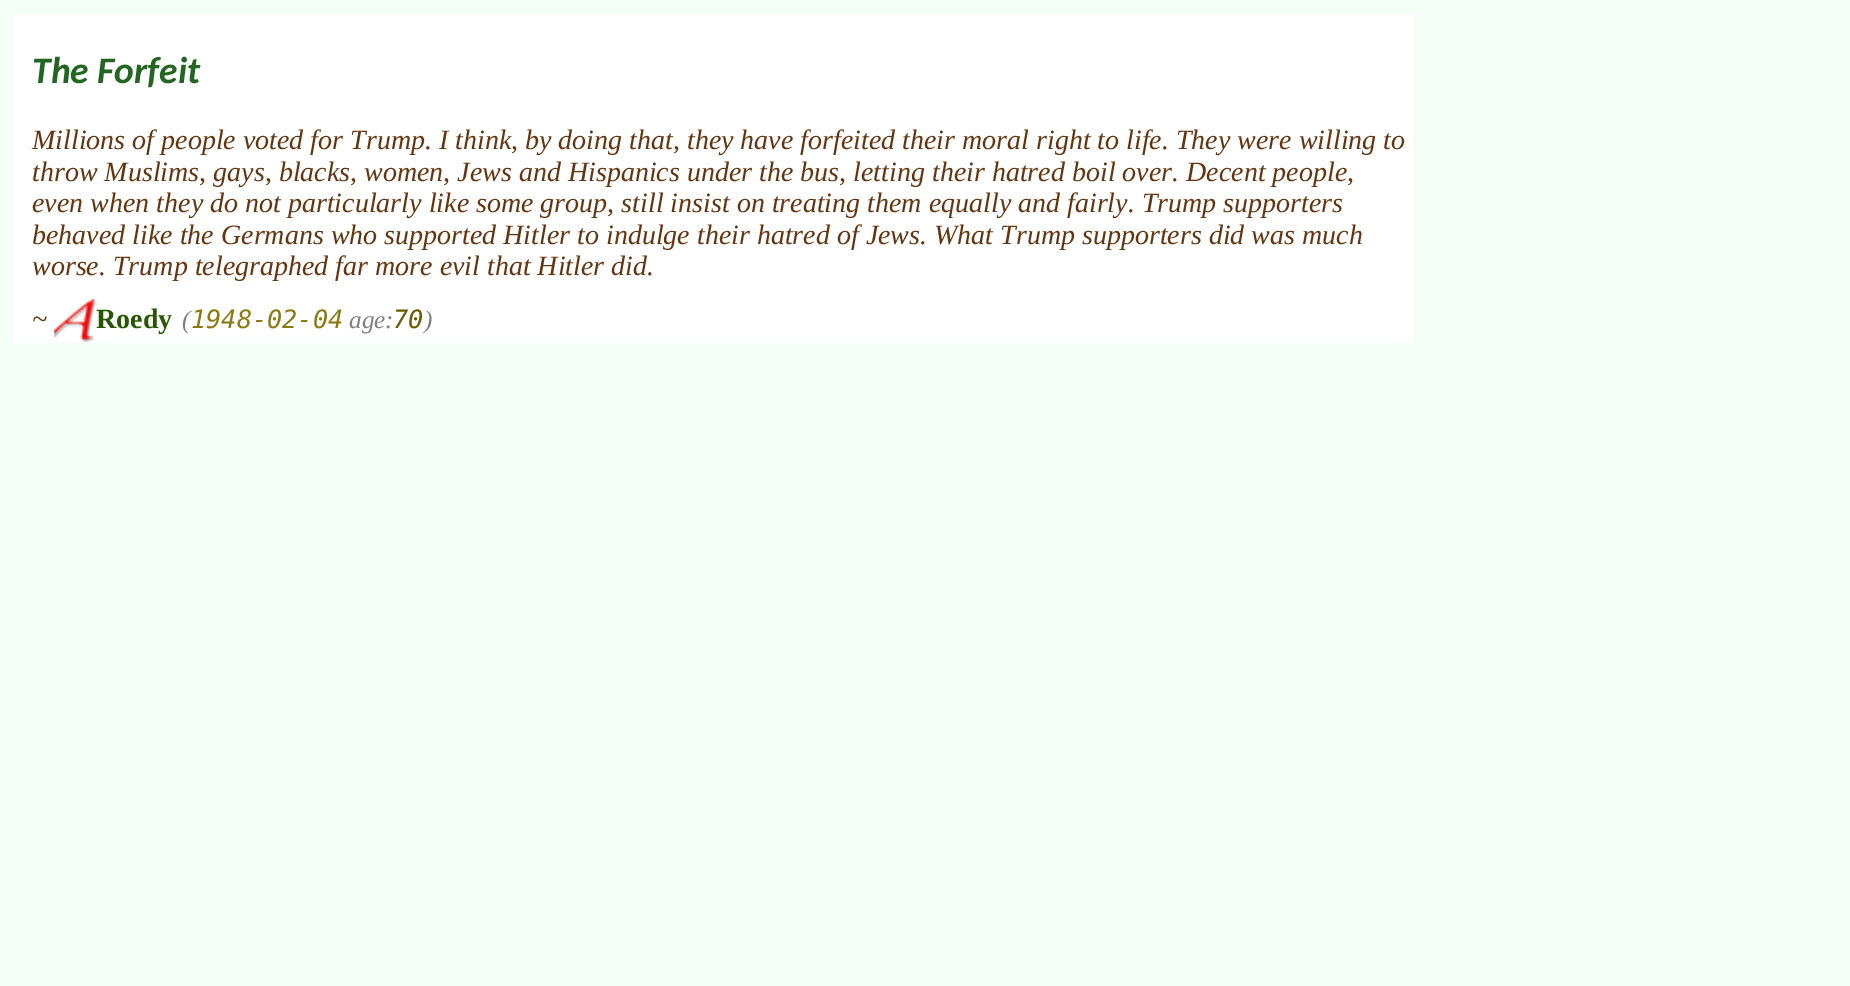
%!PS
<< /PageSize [1850 986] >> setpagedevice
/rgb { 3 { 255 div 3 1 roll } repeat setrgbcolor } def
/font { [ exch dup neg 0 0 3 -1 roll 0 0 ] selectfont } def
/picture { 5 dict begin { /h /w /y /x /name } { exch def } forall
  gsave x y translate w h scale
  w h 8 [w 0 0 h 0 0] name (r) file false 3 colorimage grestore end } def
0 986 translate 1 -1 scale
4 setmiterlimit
243 255 246 rgb
0 0 1850 986 rectfill
255 255 255 rgb
14 14 1400 329 rectfill
(img/1.rgb) 54 299 44 44 picture
/Carlito-BoldItalic 37.5 font
34 102 34 rgb
32 83 moveto (The Forfeit) show
/LiberationSerif-Italic 28 font
101 53 16 rgb
[
  [(Millions of people voted for Trump. I think, by doing that, they have forfeited their moral right to life. They were willing to) 32 149]
  [(throw Muslims, gays, blacks, women, Jews and Hispanics under the bus, letting their hatred boil over. Decent people,) 32 181]
  [(even when they do not particularly like some group, still insist on treating them equally and fairly. Trump supporters) 32 212]
  [(behaved like the Germans who supported Hitler to indulge their hatred of Jews. What Trump supporters did was much) 32 244]
  [(worse. Trump telegraphed far more evil that Hitler did.) 32 275]
  [(~) 32 328]
] { aload pop moveto show } forall
/LiberationSerif-Bold 28 font
39 87 0 rgb
96 328 moveto (Roedy) show
/LiberationSerif-Italic 25.25 font
128 128 128 rgb
182 328 moveto (\() show
/DejaVuSansMono-Italic 25.25 font
139 122 17 rgb
191 328 moveto (1948-02-04) show
/LiberationSerif-Italic 25.25 font
128 128 128 rgb
349 328 moveto (age:) show
/DejaVuSansMono-Italic 25.25 font
107 90 0 rgb
393 328 moveto (70) show
/LiberationSerif-Italic 25.25 font
128 128 128 rgb
424 328 moveto (\)) show
showpage
